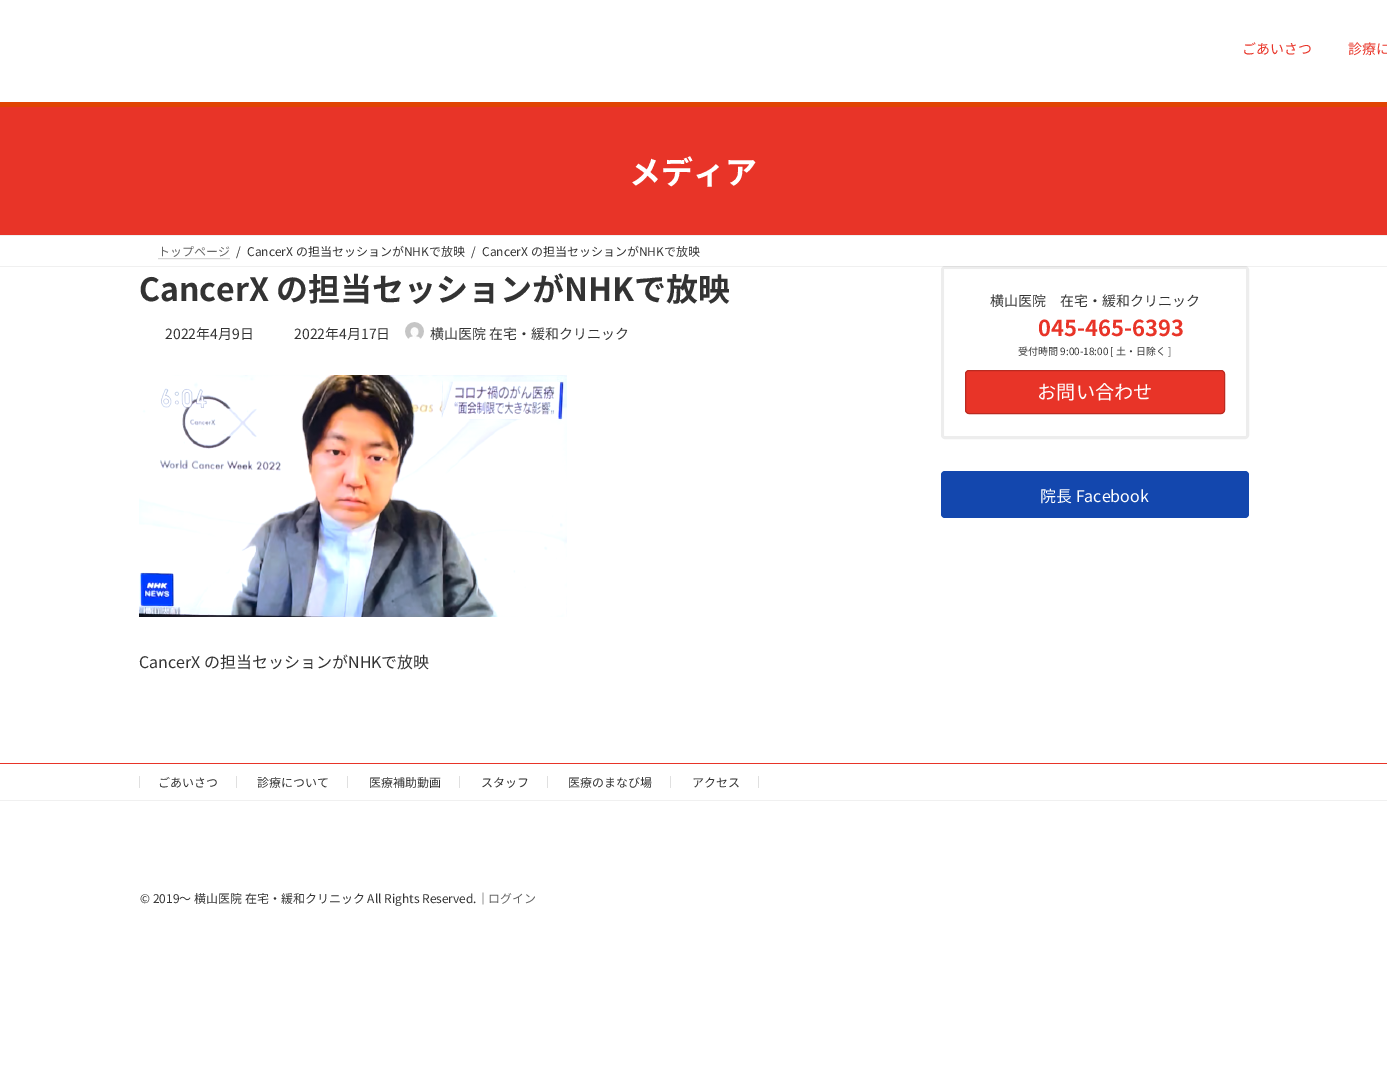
%!PS
<< /PageSize [1387 1065] /PageUsesTransparency true >> setpagedevice
/rgb { 3 { 255 div 3 1 roll } repeat setrgbcolor } def
/font { [ exch dup neg 0 0 3 -1 roll 0 0 ] selectfont } def
/alpha { dup .setfillconstantalpha .setstrokeconstantalpha } def
/roundrect { 5 dict begin { /r /h /w /y /x } { exch def } forall
  x r add y moveto x w add y 2 copy h add r arct x w add y h add x 1 index r arct
  x y h add x y r arct x y 2 copy exch w add exch r arct closepath end } def
/picture { 5 dict begin { /h /w /y /x /name } { exch def } forall
  gsave x y translate w h scale
  w h 8 [w 0 0 h 0 0] name (r) file false 3 colorimage grestore end } def
0 .pushpdf14devicefilter
0 1065 translate 1 -1 scale
4 setmiterlimit
255 255 255 rgb
0 0 1387 1065 rectfill
[
  [0 102 1387 5 224 68 3]
  [0 107 1387 128 232 52 40]
  [0 235 1387 1 240 240 240]
  [0 266 1387 1 240 240 240]
] { aload pop rgb rectfill } forall
179 179 179 rgb
[1 1] 0 setdash
158.5 258.5 moveto 230.5 258.5 lineto stroke
(img/1.rgb) 405 322 19 17 picture
(img/2.rgb) 139 375 428 242 picture
0.07 alpha
0 0 0 rgb
3 setlinewidth
[] 0 setdash
942.5 267.5 305 170 2.5 roundrect stroke
0.8 alpha
255 255 255 rgb
945 269 moveto 944 269 944 269 944 270 curveto 944 435 lineto 944 436 944 436 945 436 curveto 1245 436 lineto 1246 436 1246 436 1246 435 curveto 1246 270 lineto 1246 269 1246 269 1245 269 curveto closepath 945 270 moveto 945 435 lineto 1245 435 lineto 1245 270 lineto closepath eofill
1 alpha
232 52 40 rgb
965.5 370.5 259 43 3.5 roundrect gsave fill grestore
186 42 32 rgb
1 setlinewidth
stroke
19 71 174 rgb
941 471 308 47 4 roundrect fill
[
  [0 763 1387 1 232 52 40]
  [0 800 1387 1 240 240 240]
  [236 776 1 12 224 224 224]
  [139 776 1 12 224 224 224]
  [347 776 1 12 224 224 224]
  [459 776 1 12 224 224 224]
  [547 776 1 12 224 224 224]
  [670 776 1 12 224 224 224]
  [758 776 1 12 224 224 224]
] { aload pop rgb rectfill } forall
/NotoSansJP-Regular 14 font
232 52 40 rgb
1242 54 moveto (ごあいさつ) show
1348 54 moveto (診療に) show
/NotoSansJP-Bold 32 font
255 255 255 rgb
629 184 moveto (メディア) show
/NotoSansJP-Regular 12 font
102 102 102 rgb
158 256 moveto (トップページ) show
51 51 51 rgb
[
  [(/) 236 256]
  [(CancerX の担当セッションがNHKで放映) 247 256]
  [(/) 471 256]
  [(CancerX の担当セッションがNHKで放映) 482 256]
] { aload pop moveto show } forall
/NotoSansJP-Bold 32 font
139 301 moveto (CancerX の担当セッションがNHKで放映) show
/NotoSansJP-Regular 14 font
[
  [(2022年4月9日) 165 339]
  [(2022年4月17日) 294 339]
  [(横山医院 在宅・緩和クリニック) 430 339]
] { aload pop moveto show } forall
/NotoSansJP-Regular 16 font
139 668 moveto (CancerX の担当セッションがNHKで放映) show
/NotoSansJP-Regular 14 font
990 306 moveto (横山医院　在宅・緩和クリニック) show
/NotoSansJP-Bold 22 font
232 52 40 rgb
1038 336 moveto (045-465-6393) show
/NotoSansJP-Regular 10 font
51 51 51 rgb
1018 355 moveto (受付時間 9:00-18:00 [ 土・日除く ]) show
/NotoSansJP-Regular 19.25 font
255 255 255 rgb
1037 399 moveto (お問い合わせ) show
/NotoSansJP-Regular 16 font
1040 502 moveto (院長 Facebook) show
/NotoSansJP-Regular 12 font
51 51 51 rgb
[
  [(ごあいさつ) 158 787]
  [(診療について) 257 787]
  [(医療補助動画) 369 787]
  [(スタッフ) 481 787]
  [(医療のまなび場) 568 787]
  [(アクセス) 692 787]
  [(© 2019〜 横山医院 在宅・緩和クリニック All Rights Reserved.｜) 140 903]
] { aload pop moveto show } forall
102 102 102 rgb
488 903 moveto (ログイン) show
.poppdf14devicefilter showpage
